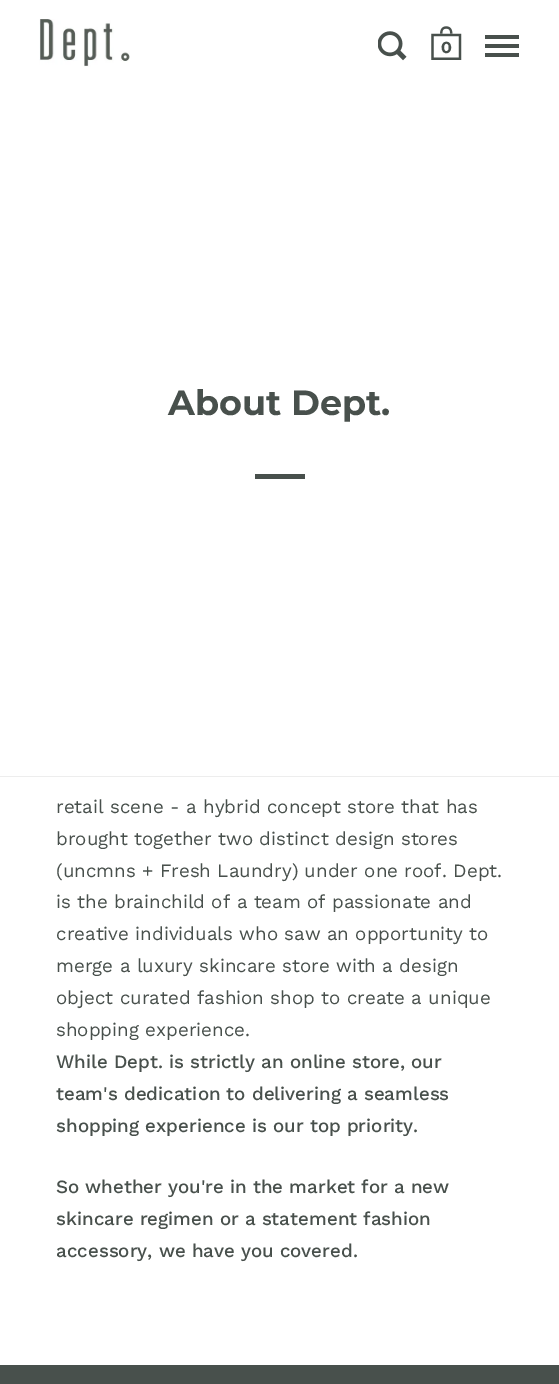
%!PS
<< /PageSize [559 1384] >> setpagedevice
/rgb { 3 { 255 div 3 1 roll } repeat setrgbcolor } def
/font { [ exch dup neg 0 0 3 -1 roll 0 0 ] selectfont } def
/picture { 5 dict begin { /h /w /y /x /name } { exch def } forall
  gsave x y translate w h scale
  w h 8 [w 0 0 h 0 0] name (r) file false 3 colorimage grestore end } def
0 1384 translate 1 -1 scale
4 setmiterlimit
255 255 255 rgb
0 0 559 1384 rectfill
(img/1.rgb) 39 19 91 48 picture
(img/2.rgb) 378 31 29 30 picture
(img/3.rgb) 431 26 31 34 picture
[
  [485 44 34 4 72 80 76]
  [485 35 34 4 72 80 76]
  [485 53 34 4 72 80 76]
  [0 776 559 1 237 237 237]
  [255 474 50 5 72 80 76]
  [0 1365 559 19 72 80 76]
] { aload pop rgb rectfill } forall
/Montserrat-Bold 16 font
441 53 moveto (0) show
/Montserrat-Bold 35 font
168 415 moveto (About Dept.) show
/WorkSans-Regular 18.75 font
[
  [(retail scene - a hybrid concept store that has) 56 813]
  [(brought together two distinct design stores) 56 845]
  [(\(uncmns + Fresh Laundry\) under one roof. Dept.) 56 877]
  [(is the brainchild of a team of passionate and) 56 908]
  [(creative individuals who saw an opportunity to) 56 940]
  [(merge a luxury skincare store with a design) 56 972]
  [(object curated fashion shop to create a unique) 56 1004]
  [(shopping experience.) 56 1036]
] { aload pop moveto show } forall
/WorkSans-Medium 18.75 font
[
  [(While Dept. is strictly an online store, our) 56 1068]
  [(team's dedication to delivering a seamless) 56 1100]
  [(shopping experience is our top priority.) 56 1132]
  [(So whether you're in the market for a new) 56 1193]
  [(skincare regimen or a statement fashion) 56 1225]
  [(accessory, we have you covered.) 56 1257]
] { aload pop moveto show } forall
showpage
